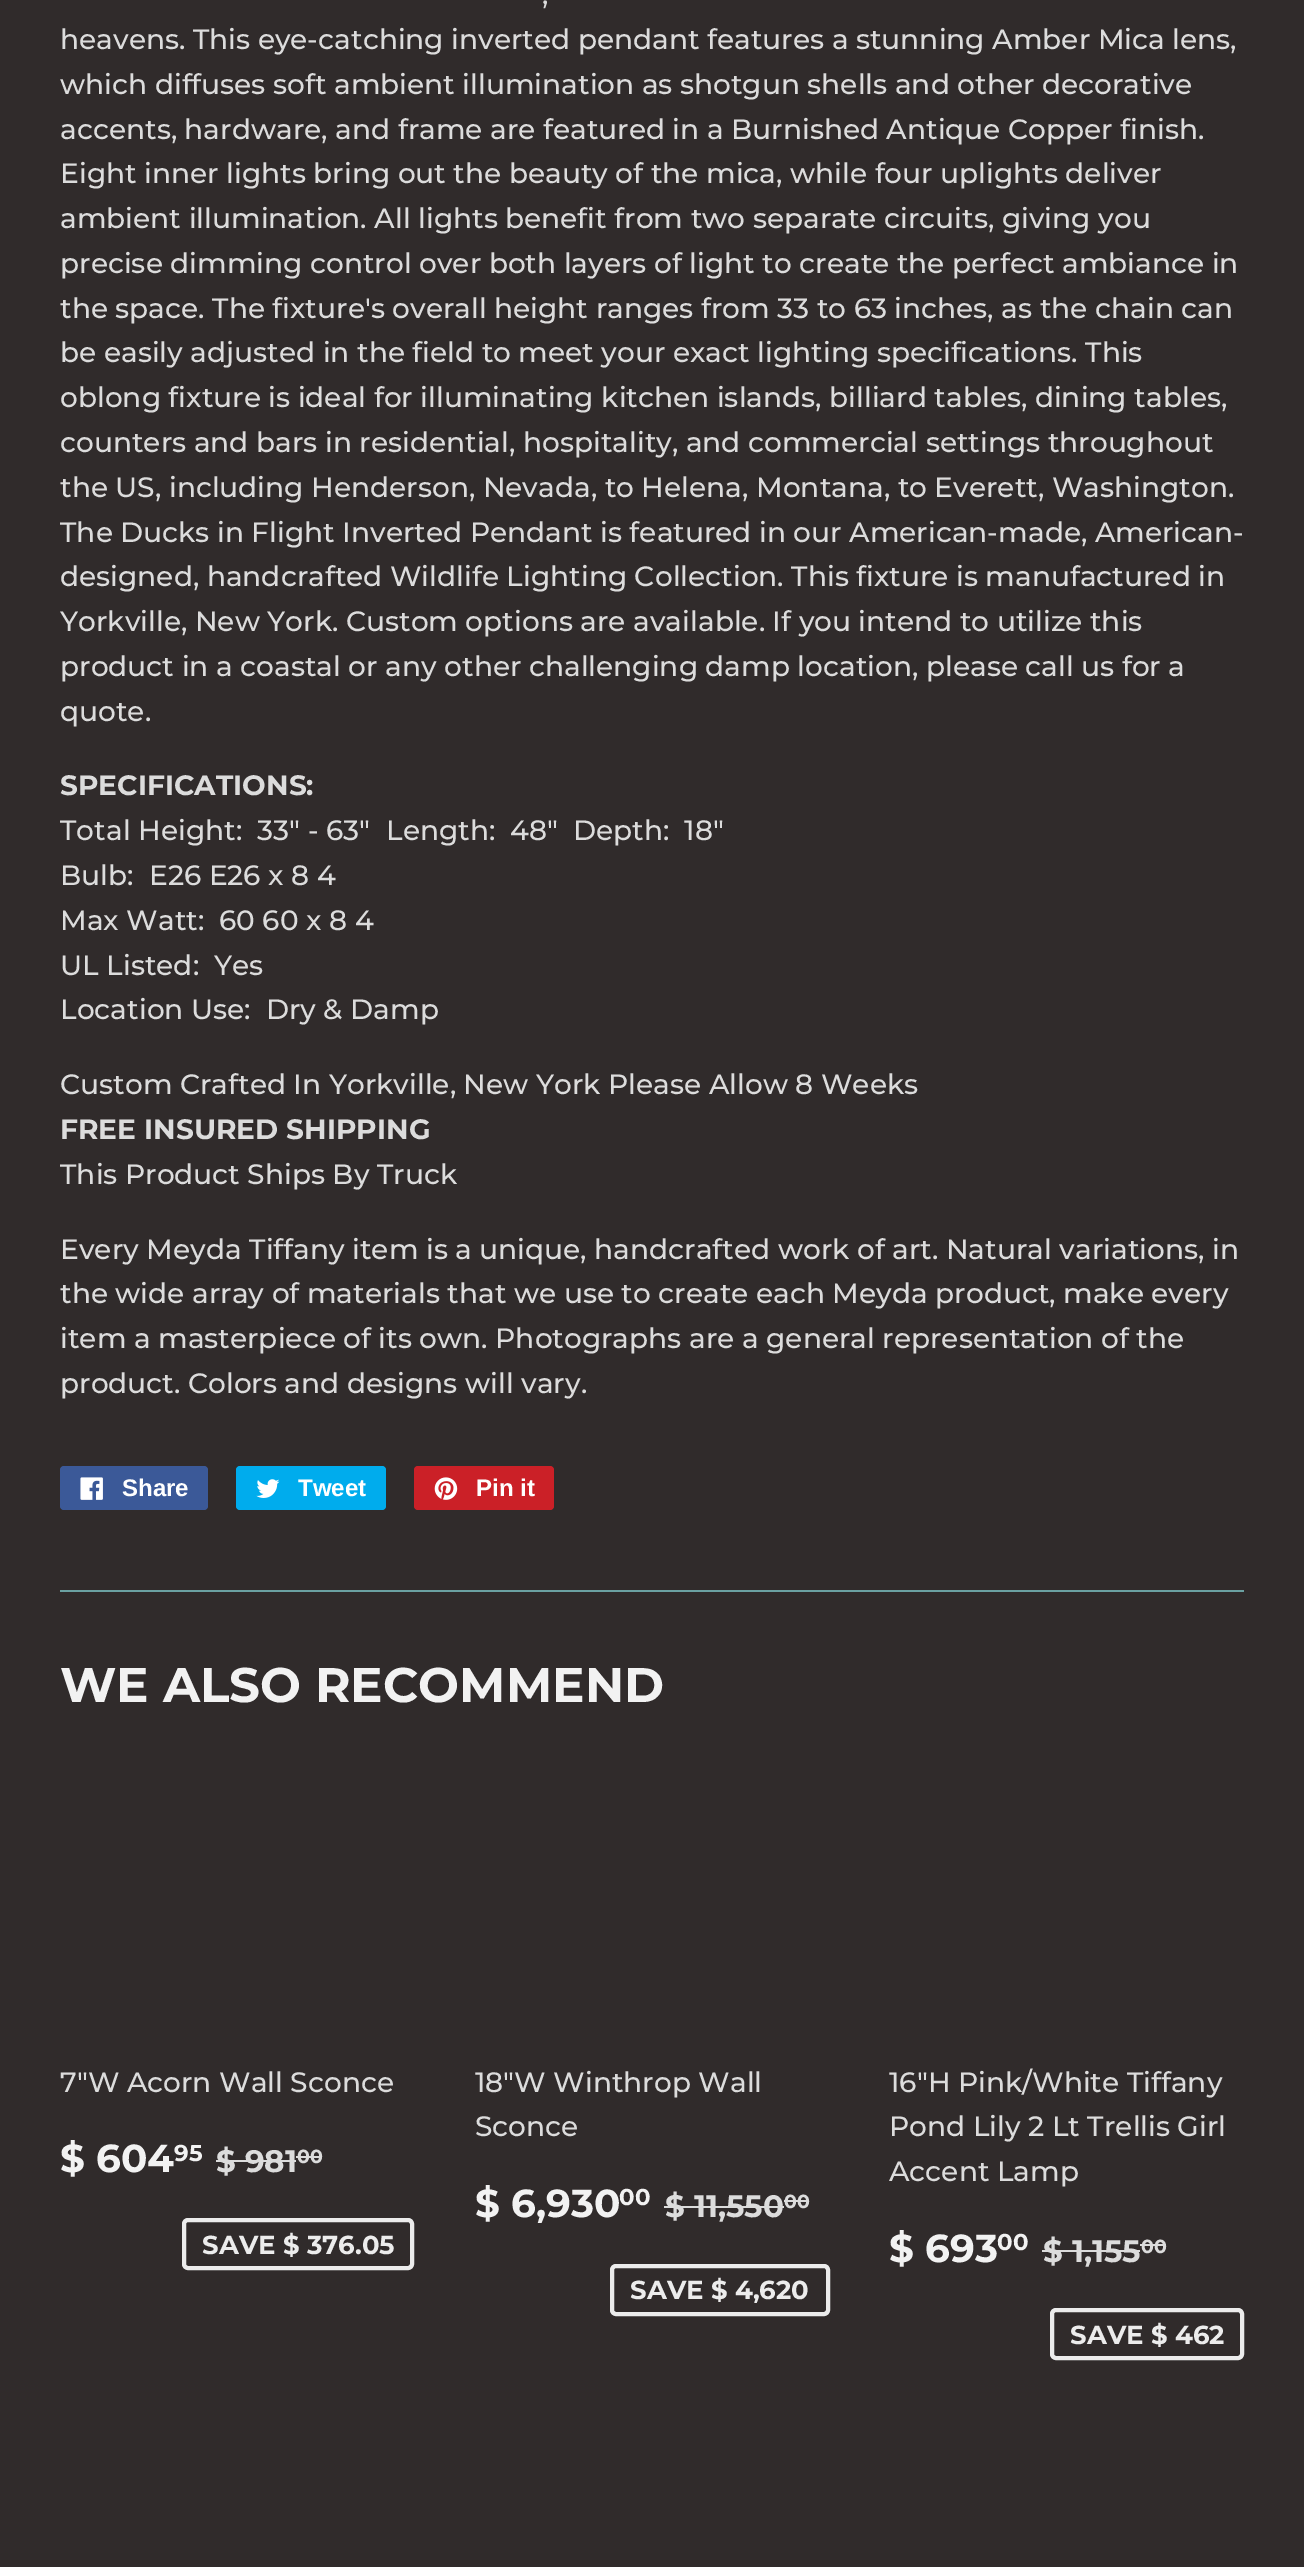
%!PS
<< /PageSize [1304 2567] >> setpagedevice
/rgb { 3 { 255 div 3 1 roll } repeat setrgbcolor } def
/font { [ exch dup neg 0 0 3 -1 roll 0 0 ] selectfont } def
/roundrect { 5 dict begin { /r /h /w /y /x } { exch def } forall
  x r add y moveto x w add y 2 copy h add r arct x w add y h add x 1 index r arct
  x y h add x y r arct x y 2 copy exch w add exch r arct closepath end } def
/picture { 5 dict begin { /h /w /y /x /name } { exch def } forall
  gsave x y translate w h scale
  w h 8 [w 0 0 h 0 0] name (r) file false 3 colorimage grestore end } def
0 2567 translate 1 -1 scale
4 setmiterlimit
48 43 43 rgb
0 0 1304 2567 rectfill
59 89 152 rgb
60 1466 148 44 4 roundrect fill
(img/1.rgb) 80 1477 23 23 picture
0 172 237 rgb
236 1466 150 44 4 roundrect fill
(img/2.rgb) 256 1479 24 19 picture
203 32 39 rgb
414 1466 140 44 4 roundrect fill
(img/3.rgb) 434 1477 24 23 picture
[
  [60 1590 1184 2 107 161 162]
  [216 2160 80 2 220 220 220]
  [296 2156 26 2 220 220 220]
] { aload pop rgb rectfill } forall
236 236 236 rgb
4 setlinewidth
184 2220 228 48 4 roundrect stroke
220 220 220 rgb
664 2206 120 2 rectfill
784 2200 24 2 rectfill
236 236 236 rgb
612 2266 216 48 4 roundrect stroke
220 220 220 rgb
1042 2250 98 2 rectfill
1140 2244 26 2 rectfill
236 236 236 rgb
1052 2310 190 48 4 roundrect stroke
/Montserrat-Medium 28 font
220 220 220 rgb
[
  [(,) 542 4]
  [(heavens. This eye-catching inverted pendant features a stunning Amber Mica lens,) 60 49]
  [(which diffuses soft ambient illumination as shotgun shells and other decorative) 60 94]
  [(accents, hardware, and frame are featured in a Burnished Antique Copper finish.) 60 139]
  [(Eight inner lights bring out the beauty of the mica, while four uplights deliver) 60 183]
  [(ambient illumination. All lights benefit from two separate circuits, giving you) 60 228]
  [(precise dimming control over both layers of light to create the perfect ambiance in) 60 273]
  [(the space. The fixture's overall height ranges from 33 to 63 inches, as the chain can) 60 318]
  [(be easily adjusted in the field to meet your exact lighting specifications. This) 60 362]
  [(oblong fixture is ideal for illuminating kitchen islands, billiard tables, dining tables,) 60 407]
  [(counters and bars in residential, hospitality, and commercial settings throughout) 60 452]
  [(the US, including Henderson, Nevada, to Helena, Montana, to Everett, Washington.) 60 497]
  [(The Ducks in Flight Inverted Pendant is featured in our American-made, American-) 60 542]
  [(designed, handcrafted Wildlife Lighting Collection. This fixture is manufactured in) 60 586]
  [(Yorkville, New York. Custom options are available. If you intend to utilize this) 60 631]
  [(product in a coastal or any other challenging damp location, please call us for a) 60 676]
  [(quote.) 60 721]
] { aload pop moveto show } forall
/Montserrat-Bold 28 font
60 795 moveto (SPECIFICATIONS:) show
/Montserrat-Medium 28 font
[
  [(Total Height:) 60 840]
  [(33" - 63") 257 840]
  [(Length:  48") 386 840]
  [(Depth:  18") 573 840]
  [(Bulb:) 60 885]
  [(E26 E26 x 8 4) 149 885]
  [(Max Watt:) 60 930]
  [(60 60 x 8 4) 219 930]
  [(UL Listed:  Yes) 60 975]
  [(Location Use:  Dry & Damp) 60 1019]
  [(Custom Crafted In Yorkville, New York Please Allow 8 Weeks) 60 1094]
] { aload pop moveto show } forall
/Montserrat-Bold 28 font
60 1139 moveto (FREE INSURED SHIPPING) show
/Montserrat-Medium 28 font
[
  [(This Product Ships By Truck) 60 1184]
  [(Every Meyda Tiffany item is a unique, handcrafted work of art. Natural variations, in) 60 1259]
  [(the wide array of materials that we use to create each Meyda product, make every) 60 1303]
  [(item a masterpiece of its own. Photographs are a general representation of the) 60 1348]
  [(product. Colors and designs will vary.) 60 1393]
] { aload pop moveto show } forall
/LiberationSans-Bold 24 font
255 255 255 rgb
[
  [(Share) 122 1496]
  [(Tweet) 298 1496]
  [(Pin it) 476 1496]
] { aload pop moveto show } forall
/Montserrat-Bold 48.5 font
242 242 242 rgb
60 1702 moveto (WE ALSO RECOMMEND) show
/Montserrat-Medium 28 font
220 220 220 rgb
60 2092 moveto (7"W Acorn Wall Sconce) show
/Montserrat-Bold 39 font
242 242 242 rgb
60 2172 moveto ($ 604) show
/Montserrat-Bold 23 font
174 2161 moveto (95) show
/Montserrat-Bold 31 font
220 220 220 rgb
216 2172 moveto ($ 981) show
/Montserrat-Bold 19 font
297 2163 moveto (00) show
/Montserrat-Bold 26 font
236 236 236 rgb
202 2254 moveto (SAVE $ 376.05) show
/Montserrat-Medium 28 font
220 220 220 rgb
475 2092 moveto (18"W Winthrop Wall) show
475 2136 moveto (Sconce) show
/Montserrat-Bold 39 font
242 242 242 rgb
475 2217 moveto ($ 6,930) show
/Montserrat-Bold 23 font
619 2205 moveto (00) show
/Montserrat-Bold 31 font
220 220 220 rgb
665 2217 moveto ($ 11,550) show
/Montserrat-Bold 19 font
784 2208 moveto (00) show
/Montserrat-Bold 26 font
236 236 236 rgb
630 2299 moveto (SAVE $ 4,620) show
/Montserrat-Medium 28 font
220 220 220 rgb
[
  [(16"H Pink/White Tiffany) 889 2092]
  [(Pond Lily 2 Lt Trellis Girl) 889 2136]
  [(Accent Lamp) 889 2181]
] { aload pop moveto show } forall
/Montserrat-Bold 39 font
242 242 242 rgb
889 2262 moveto ($ 693) show
/Montserrat-Bold 23 font
997 2250 moveto (00) show
/Montserrat-Bold 31 font
220 220 220 rgb
1043 2262 moveto ($ 1,155) show
/Montserrat-Bold 19 font
1141 2253 moveto (00) show
/Montserrat-Bold 26 font
236 236 236 rgb
1070 2344 moveto (SAVE $ 462) show
showpage
